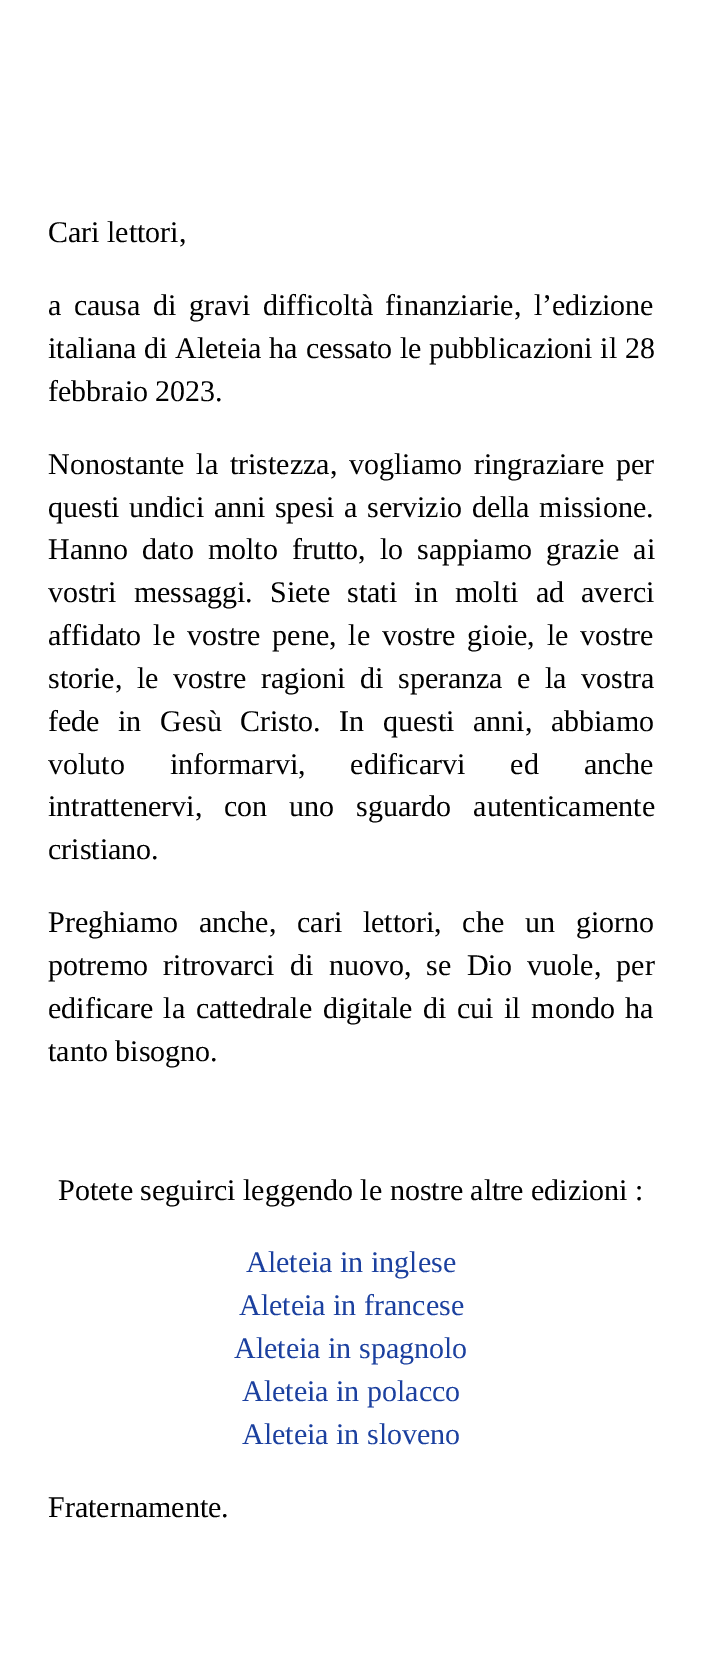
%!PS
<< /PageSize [701 1679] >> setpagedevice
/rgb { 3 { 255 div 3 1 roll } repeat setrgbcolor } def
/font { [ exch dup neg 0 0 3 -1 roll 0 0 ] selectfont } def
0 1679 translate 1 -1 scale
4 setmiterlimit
255 255 255 rgb
0 0 701 1679 rectfill
/LiberationSerif-Regular 30 font
0 0 0 rgb
48 242 moveto (Cari lettori,) show
48 315 moveto 5 0 32 (a causa di gravi difficoltà finanziarie, l’edizione) widthshow
48 358 moveto 0.25 0 32 (italiana di Aleteia ha cessato le pubblicazioni il 28) widthshow
48 401 moveto (febbraio 2023.) show
48 474 moveto 4.25 0 32 (Nonostante la tristezza, vogliamo ringraziare per) widthshow
48 517 moveto 2 0 32 (questi undici anni spesi a servizio della missione.) widthshow
48 559 moveto 6.5 0 32 (Hanno dato molto frutto, lo sappiamo grazie ai) widthshow
48 602 moveto 9.75 0 32 (vostri messaggi. Siete stati in molti ad averci) widthshow
48 645 moveto 4.5 0 32 (affidato le vostre pene, le vostre gioie, le vostre) widthshow
48 688 moveto 7 0 32 (storie, le vostre ragioni di speranza e la vostra) widthshow
48 731 moveto 11 0 32 (fede in Gesù Cristo. In questi anni, abbiamo) widthshow
48 774 moveto 37.5 0 32 (voluto informarvi, edificarvi ed anche) widthshow
48 816 moveto 14.5 0 32 (intrattenervi, con uno sguardo autenticamente) widthshow
48 859 moveto (cristiano.) show
48 932 moveto 13.25 0 32 (Preghiamo anche, cari lettori, che un giorno) widthshow
48 975 moveto 7.75 0 32 (potremo ritrovarci di nuovo, se Dio vuole, per) widthshow
48 1018 moveto 3 0 32 (edificare la cattedrale digitale di cui il mondo ha) widthshow
48 1061 moveto (tanto bisogno.) show
58 1200 moveto (Potete seguirci leggendo le nostre altre edizioni :) show
27 64 159 rgb
[
  [(Aleteia in inglese) 246 1272]
  [(Aleteia in francese) 239 1315]
  [(Aleteia in spagnolo) 234 1358]
  [(Aleteia in polacco) 242 1401]
  [(Aleteia in sloveno) 242 1444]
] { aload pop moveto show } forall
0 0 0 rgb
48 1517 moveto (Fraternamente.) show
showpage
